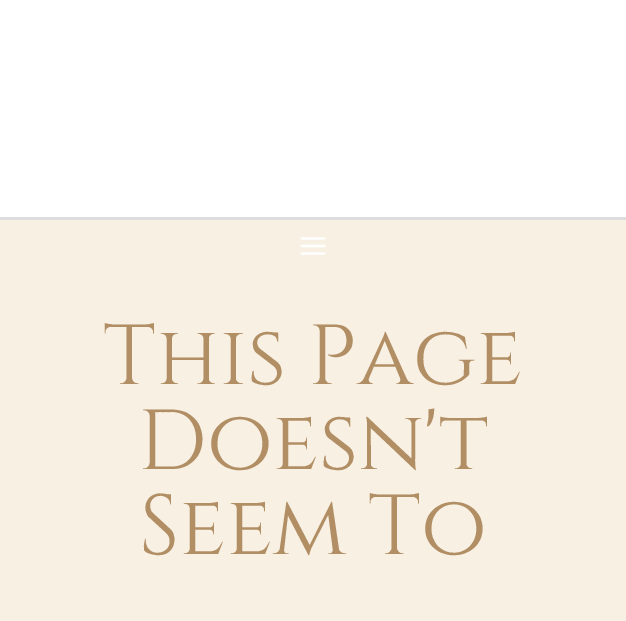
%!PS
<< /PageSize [626 621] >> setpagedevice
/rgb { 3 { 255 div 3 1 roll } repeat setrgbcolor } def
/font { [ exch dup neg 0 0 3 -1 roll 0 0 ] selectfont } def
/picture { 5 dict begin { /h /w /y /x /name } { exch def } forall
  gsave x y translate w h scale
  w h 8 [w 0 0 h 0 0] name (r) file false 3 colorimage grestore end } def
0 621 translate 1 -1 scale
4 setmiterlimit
248 241 227 rgb
0 0 626 621 rectfill
255 255 255 rgb
0 0 626 217 rectfill
221 221 221 rgb
0 217 626 3 rectfill
(img/1.rgb) 300 237 26 18 picture
/Cinzel-Regular 85 font
178 142 101 rgb
[
  [(This Page) 103 384]
  [(Doesn't) 138 469]
  [(Seem To) 139 554]
] { aload pop moveto show } forall
showpage
